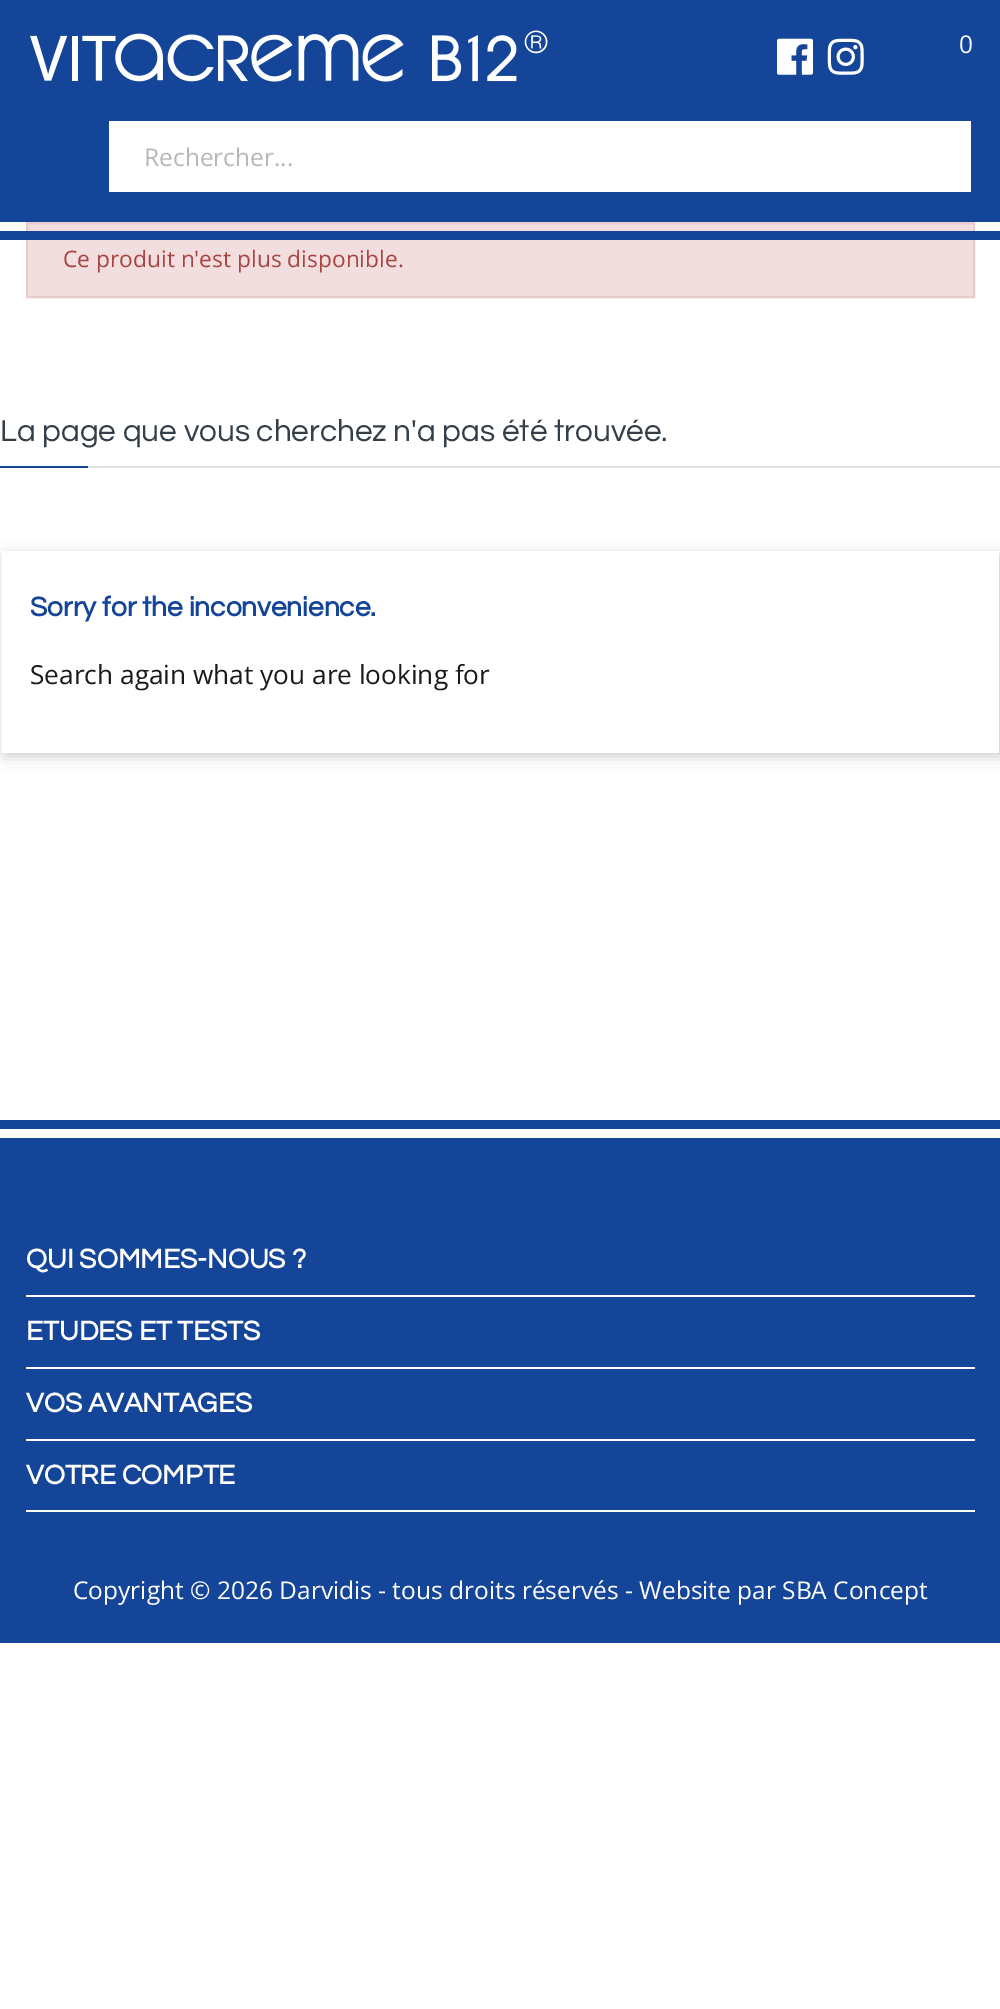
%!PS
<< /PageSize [1000 2009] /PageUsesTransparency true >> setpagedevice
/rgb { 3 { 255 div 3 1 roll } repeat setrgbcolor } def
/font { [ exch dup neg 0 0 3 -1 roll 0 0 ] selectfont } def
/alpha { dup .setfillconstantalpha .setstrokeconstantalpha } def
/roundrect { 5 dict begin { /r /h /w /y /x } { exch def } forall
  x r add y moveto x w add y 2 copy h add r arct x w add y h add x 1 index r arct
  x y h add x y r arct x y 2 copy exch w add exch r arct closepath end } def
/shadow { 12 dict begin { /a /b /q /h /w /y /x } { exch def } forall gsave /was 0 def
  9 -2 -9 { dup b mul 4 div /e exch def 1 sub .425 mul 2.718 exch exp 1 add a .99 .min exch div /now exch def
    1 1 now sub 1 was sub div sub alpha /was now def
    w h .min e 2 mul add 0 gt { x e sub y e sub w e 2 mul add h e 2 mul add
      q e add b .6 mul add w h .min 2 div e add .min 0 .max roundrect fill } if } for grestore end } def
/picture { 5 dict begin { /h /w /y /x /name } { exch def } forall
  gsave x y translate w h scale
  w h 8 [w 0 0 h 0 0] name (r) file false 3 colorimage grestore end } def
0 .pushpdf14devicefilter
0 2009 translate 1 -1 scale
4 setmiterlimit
255 255 255 rgb
0 0 1000 2009 rectfill
20 69 152 rgb
0 0 1000 222 rectfill
(img/1.rgb) 30 30 518 52 picture
(img/2.rgb) 777 38 36 37 picture
(img/3.rgb) 827 38 37 37 picture
255 255 255 rgb
109 121 862 71 rectfill
242 222 222 rgb
27 223 moveto 974 223 lineto 974 297 lineto 27 297 lineto closepath gsave fill grestore
235 204 204 rgb
2 setlinewidth
stroke
[
  [0 231 1000 9 20 69 152]
  [88 466 912 2 225 225 225]
  [0 466 88 2 20 69 152]
] { aload pop rgb rectfill } forall
0 0 0 rgb
5 555 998 201 0 7 0.2 shadow
[
  [2 551 997 202 255 255 255]
  [0 1138 1000 505 20 69 152]
  [0 1120 1000 9 20 69 152]
  [26 1295 949 2 255 255 255]
  [26 1367 949 2 255 255 255]
  [26 1439 949 2 255 255 255]
  [26 1510 949 2 255 255 255]
] { aload pop rgb rectfill } forall
/OpenSans-Regular 24.5 font
248 249 250 rgb
959 53 moveto (0) show
183 183 183 rgb
144 166 moveto (Rechercher...) show
/OpenSans-Regular 22.75 font
169 68 66 rgb
63 267 moveto (Ce produit n'est plus disponible.) show
/Questrial-Regular 31.5 font
51 62 72 rgb
0 441 moveto (La page que vous cherchez n'a pas été trouvée.) show
/Questrial-Bold 28 font
20 69 152 rgb
30 616 moveto (Sorry for the inconvenience.) show
/OpenSans-Regular 26.25 font
26 26 26 rgb
30 684 moveto (Search again what you are looking for) show
/Questrial-Bold 28 font
255 255 255 rgb
[
  [(QUI SOMMES-NOUS ?) 26 1268]
  [(ETUDES ET TESTS) 26 1340]
  [(VOS AVANTAGES) 26 1412]
  [(VOTRE COMPTE) 26 1484]
] { aload pop moveto show } forall
/OpenSans-Regular 24.5 font
73 1599 moveto (Copyright © 2026 Darvidis - tous droits réservés - Website par SBA Concept) show
.poppdf14devicefilter showpage
